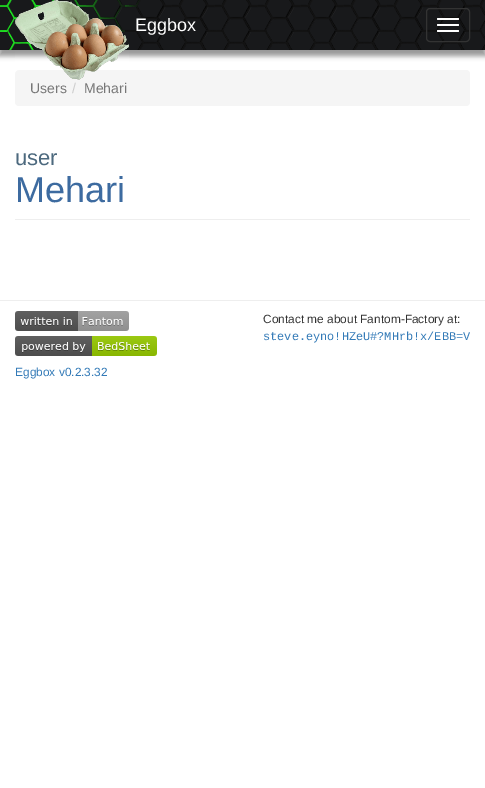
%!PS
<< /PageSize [485 788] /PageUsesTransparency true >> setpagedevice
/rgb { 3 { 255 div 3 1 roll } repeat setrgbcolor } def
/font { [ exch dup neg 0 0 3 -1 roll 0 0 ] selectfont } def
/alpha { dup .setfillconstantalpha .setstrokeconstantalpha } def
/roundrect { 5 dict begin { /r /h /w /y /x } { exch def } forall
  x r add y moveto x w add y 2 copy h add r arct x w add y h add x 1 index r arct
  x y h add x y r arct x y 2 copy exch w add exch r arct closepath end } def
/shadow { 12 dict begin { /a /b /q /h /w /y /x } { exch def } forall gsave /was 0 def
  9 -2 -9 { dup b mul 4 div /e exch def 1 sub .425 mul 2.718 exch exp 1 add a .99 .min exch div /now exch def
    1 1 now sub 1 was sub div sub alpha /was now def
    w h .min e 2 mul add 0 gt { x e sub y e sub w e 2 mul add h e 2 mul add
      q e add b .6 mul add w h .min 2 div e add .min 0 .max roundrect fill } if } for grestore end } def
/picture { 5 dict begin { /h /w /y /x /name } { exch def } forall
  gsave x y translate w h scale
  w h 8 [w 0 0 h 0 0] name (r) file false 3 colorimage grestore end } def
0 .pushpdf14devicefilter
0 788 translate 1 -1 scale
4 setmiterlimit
255 255 255 rgb
0 0 485 788 rectfill
0 0 0 rgb
-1 4 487 52 0 2.5 0.4 shadow
19 19 19 rgb
125 0 360 50 rectfill
32 238 35 rgb
0 0 125 50 rectfill
(img/1.rgb) 0 0 125 50 picture
(img/2.rgb) 125 0 15 34 picture
(img/3.rgb) 0 0 485 50 picture
245 245 245 rgb
15 70 455 36 4 roundrect fill
(img/4.rgb) 15 0 114 80 picture
51 51 51 rgb
426.5 8.5 43 33 3.5 roundrect stroke
255 255 255 rgb
437 18 22 2 1 roundrect fill
437 24 22 2 1 roundrect fill
437 30 22 2 1 roundrect fill
238 238 238 rgb
15 219 455 1 rectfill
0 300 485 1 rectfill
(img/5.rgb) 15 311 114 20 picture
(img/6.rgb) 15 336 142 20 picture
/LiberationSans-Regular 18 font
255 255 255 rgb
135 31 moveto (Eggbox) show
/LiberationSans-Regular 14 font
119 119 119 rgb
30 93 moveto (Users) show
204 204 204 rgb
72 93 moveto (/) show
119 119 119 rgb
84 93 moveto (Mehari) show
/LiberationSans-Regular 22 font
76 105 126 rgb
15 165 moveto (user) show
/LiberationSans-Regular 36 font
61 107 160 rgb
15 202 moveto (Mehari) show
/LiberationSans-Regular 11.9 font
51 51 51 rgb
263 323 moveto (Contact me about Fantom-Factory at:) show
/LiberationMono-Regular 11.9 font
51 122 183 rgb
263 340 moveto (steve.eyno!HZeU#?MHrb!x/EBB=V) show
/LiberationSans-Regular 11.9 font
15 376 moveto (Eggbox v0.2.3.32) show
.poppdf14devicefilter showpage
